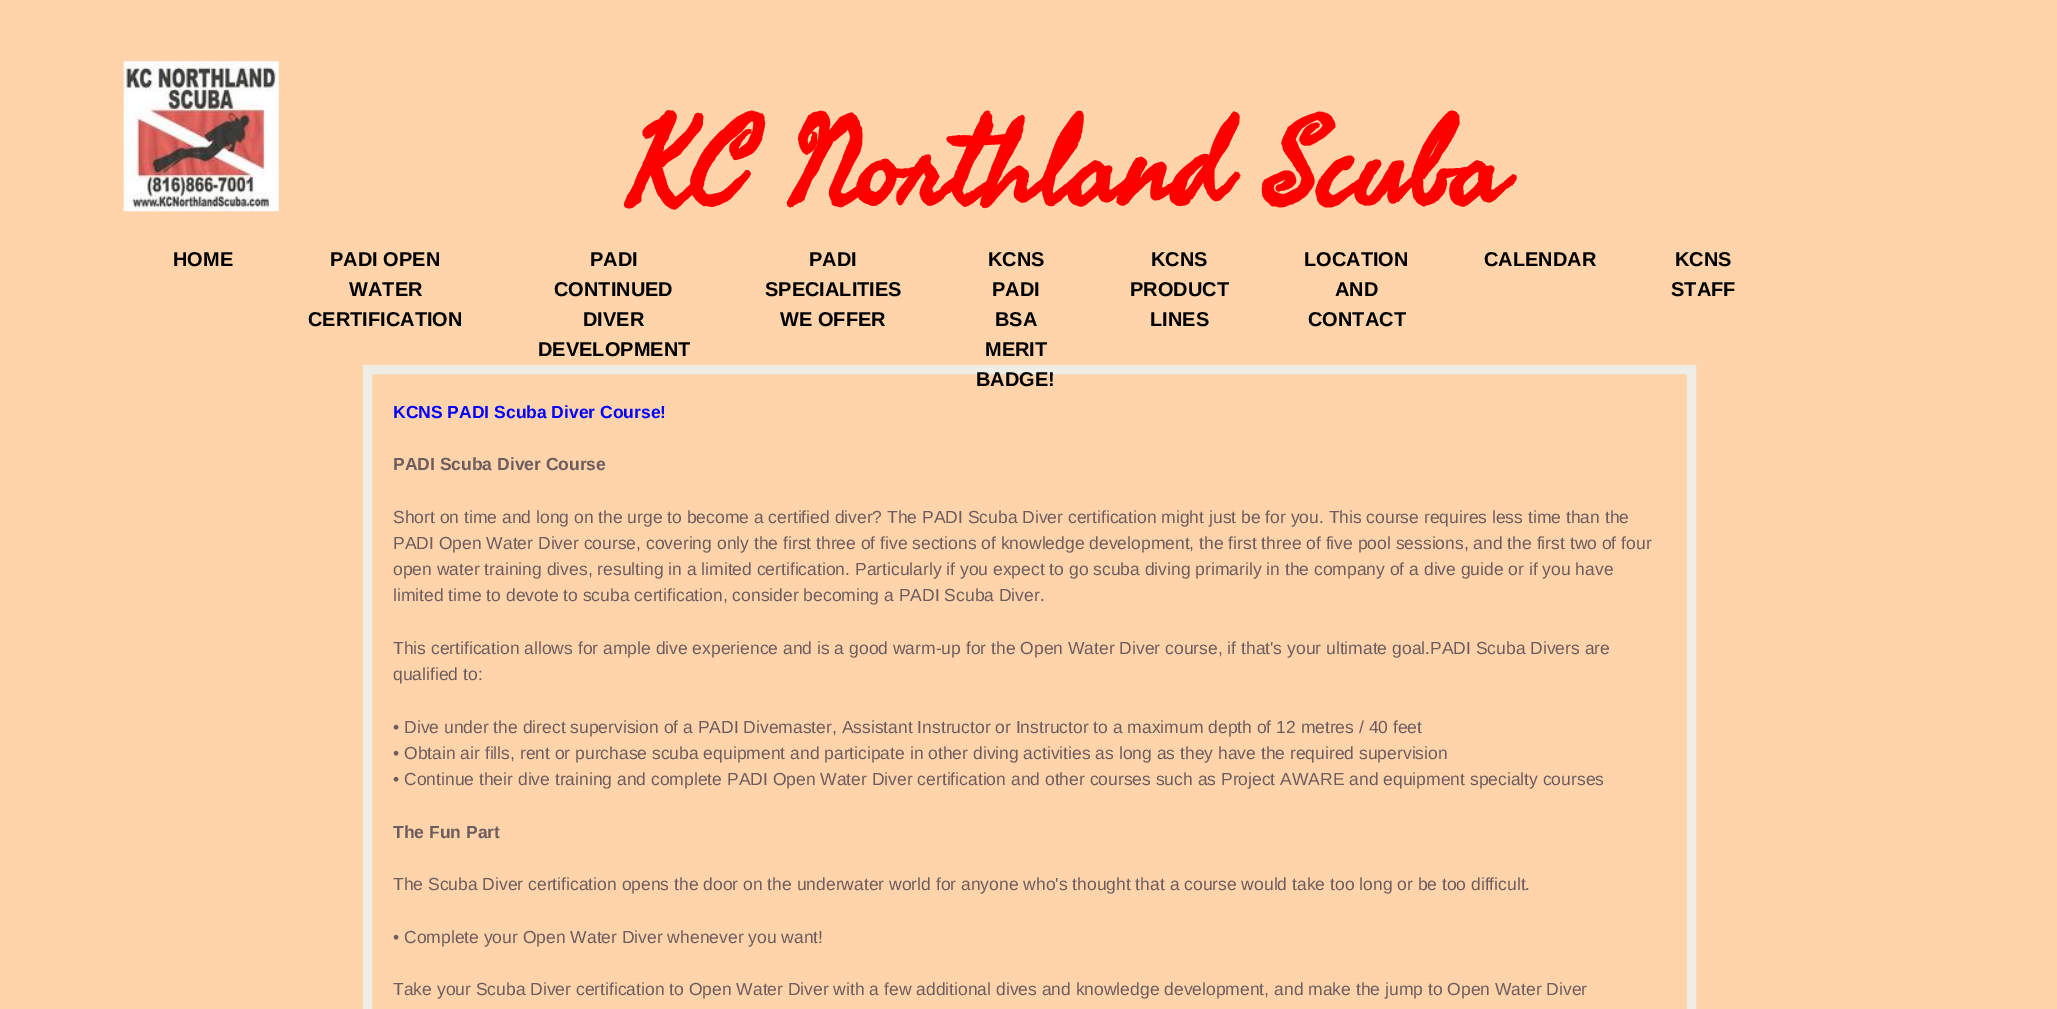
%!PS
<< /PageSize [2057 1009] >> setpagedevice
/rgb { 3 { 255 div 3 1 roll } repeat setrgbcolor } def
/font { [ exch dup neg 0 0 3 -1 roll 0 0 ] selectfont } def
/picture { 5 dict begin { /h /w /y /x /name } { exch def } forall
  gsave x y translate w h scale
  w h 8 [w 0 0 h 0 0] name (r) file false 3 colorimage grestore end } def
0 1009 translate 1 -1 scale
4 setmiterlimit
255 212 170 rgb
0 0 2057 1009 rectfill
239 238 230 rgb
9 setlinewidth
367.5 369.5 1324 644 rectstroke
(img/1.rgb) 123 61 156 151 picture
/SeaweedScript-Bold 120 font
255 0 0 rgb
627 203 moveto (KC Northland Scuba) show
/LiberationSans-Bold 20 font
0 0 0 rgb
[
  [(HOME) 173 266]
  [(PADI OPEN) 330 266]
  [(WATER) 349 296]
  [(CERTIFICATION) 308 326]
  [(PADI) 590 266]
  [(CONTINUED) 554 296]
  [(DIVER) 583 326]
  [(DEVELOPMENT) 538 356]
  [(PADI) 809 266]
  [(SPECIALITIES) 765 296]
  [(WE OFFER) 780 326]
  [(KCNS) 988 266]
  [(PADI) 992 296]
  [(BSA) 995 326]
  [(MERIT) 985 356]
  [(BADGE!) 976 386]
  [(KCNS) 1151 266]
  [(PRODUCT) 1130 296]
  [(LINES) 1150 326]
  [(LOCATION) 1304 266]
  [(AND) 1335 296]
  [(CONTACT) 1308 326]
  [(CALENDAR) 1484 266]
  [(KCNS) 1675 266]
  [(STAFF) 1671 296]
] { aload pop moveto show } forall
/LiberationSans-Bold 17.5 font
0 0 255 rgb
393 418 moveto (KCNS PADI Scuba Diver Course!) show
108 92 94 rgb
393 470 moveto (PADI Scuba Diver Course) show
/LiberationSans-Regular 17.5 font
[
  [(Short on time and long on the urge to become a certified diver? The PADI Scuba Diver certification might just be for you. This course requires less time than the) 393 523]
  [(PADI Open Water Diver course, covering only the first three of five sections of knowledge development, the first three of five pool sessions, and the first two of four) 393 549]
  [(open water training dives, resulting in a limited certification. Particularly if you expect to go scuba diving primarily in the company of a dive guide or if you have) 393 575]
  [(limited time to devote to scuba certification, consider becoming a PADI Scuba Diver.) 393 601]
  [(This certification allows for ample dive experience and is a good warm-up for the Open Water Diver course, if that's your ultimate goal.PADI Scuba Divers are) 393 654]
  [(qualified to:) 393 680]
  [(• Dive under the direct supervision of a PADI Divemaster, Assistant Instructor or Instructor to a maximum depth of 12 metres / 40 feet) 393 733]
  [(• Obtain air fills, rent or purchase scuba equipment and participate in other diving activities as long as they have the required supervision) 393 759]
  [(• Continue their dive training and complete PADI Open Water Diver certification and other courses such as Project AWARE and equipment specialty courses) 393 785]
] { aload pop moveto show } forall
/LiberationSans-Bold 17.5 font
393 838 moveto (The Fun Part) show
/LiberationSans-Regular 17.5 font
[
  [(The Scuba Diver certification opens the door on the underwater world for anyone who's thought that a course would take too long or be too difficult.) 393 890]
  [(• Complete your Open Water Diver whenever you want!) 393 943]
  [(Take your Scuba Diver certification to Open Water Diver with a few additional dives and knowledge development, and make the jump to Open Water Diver) 393 995]
] { aload pop moveto show } forall
showpage
